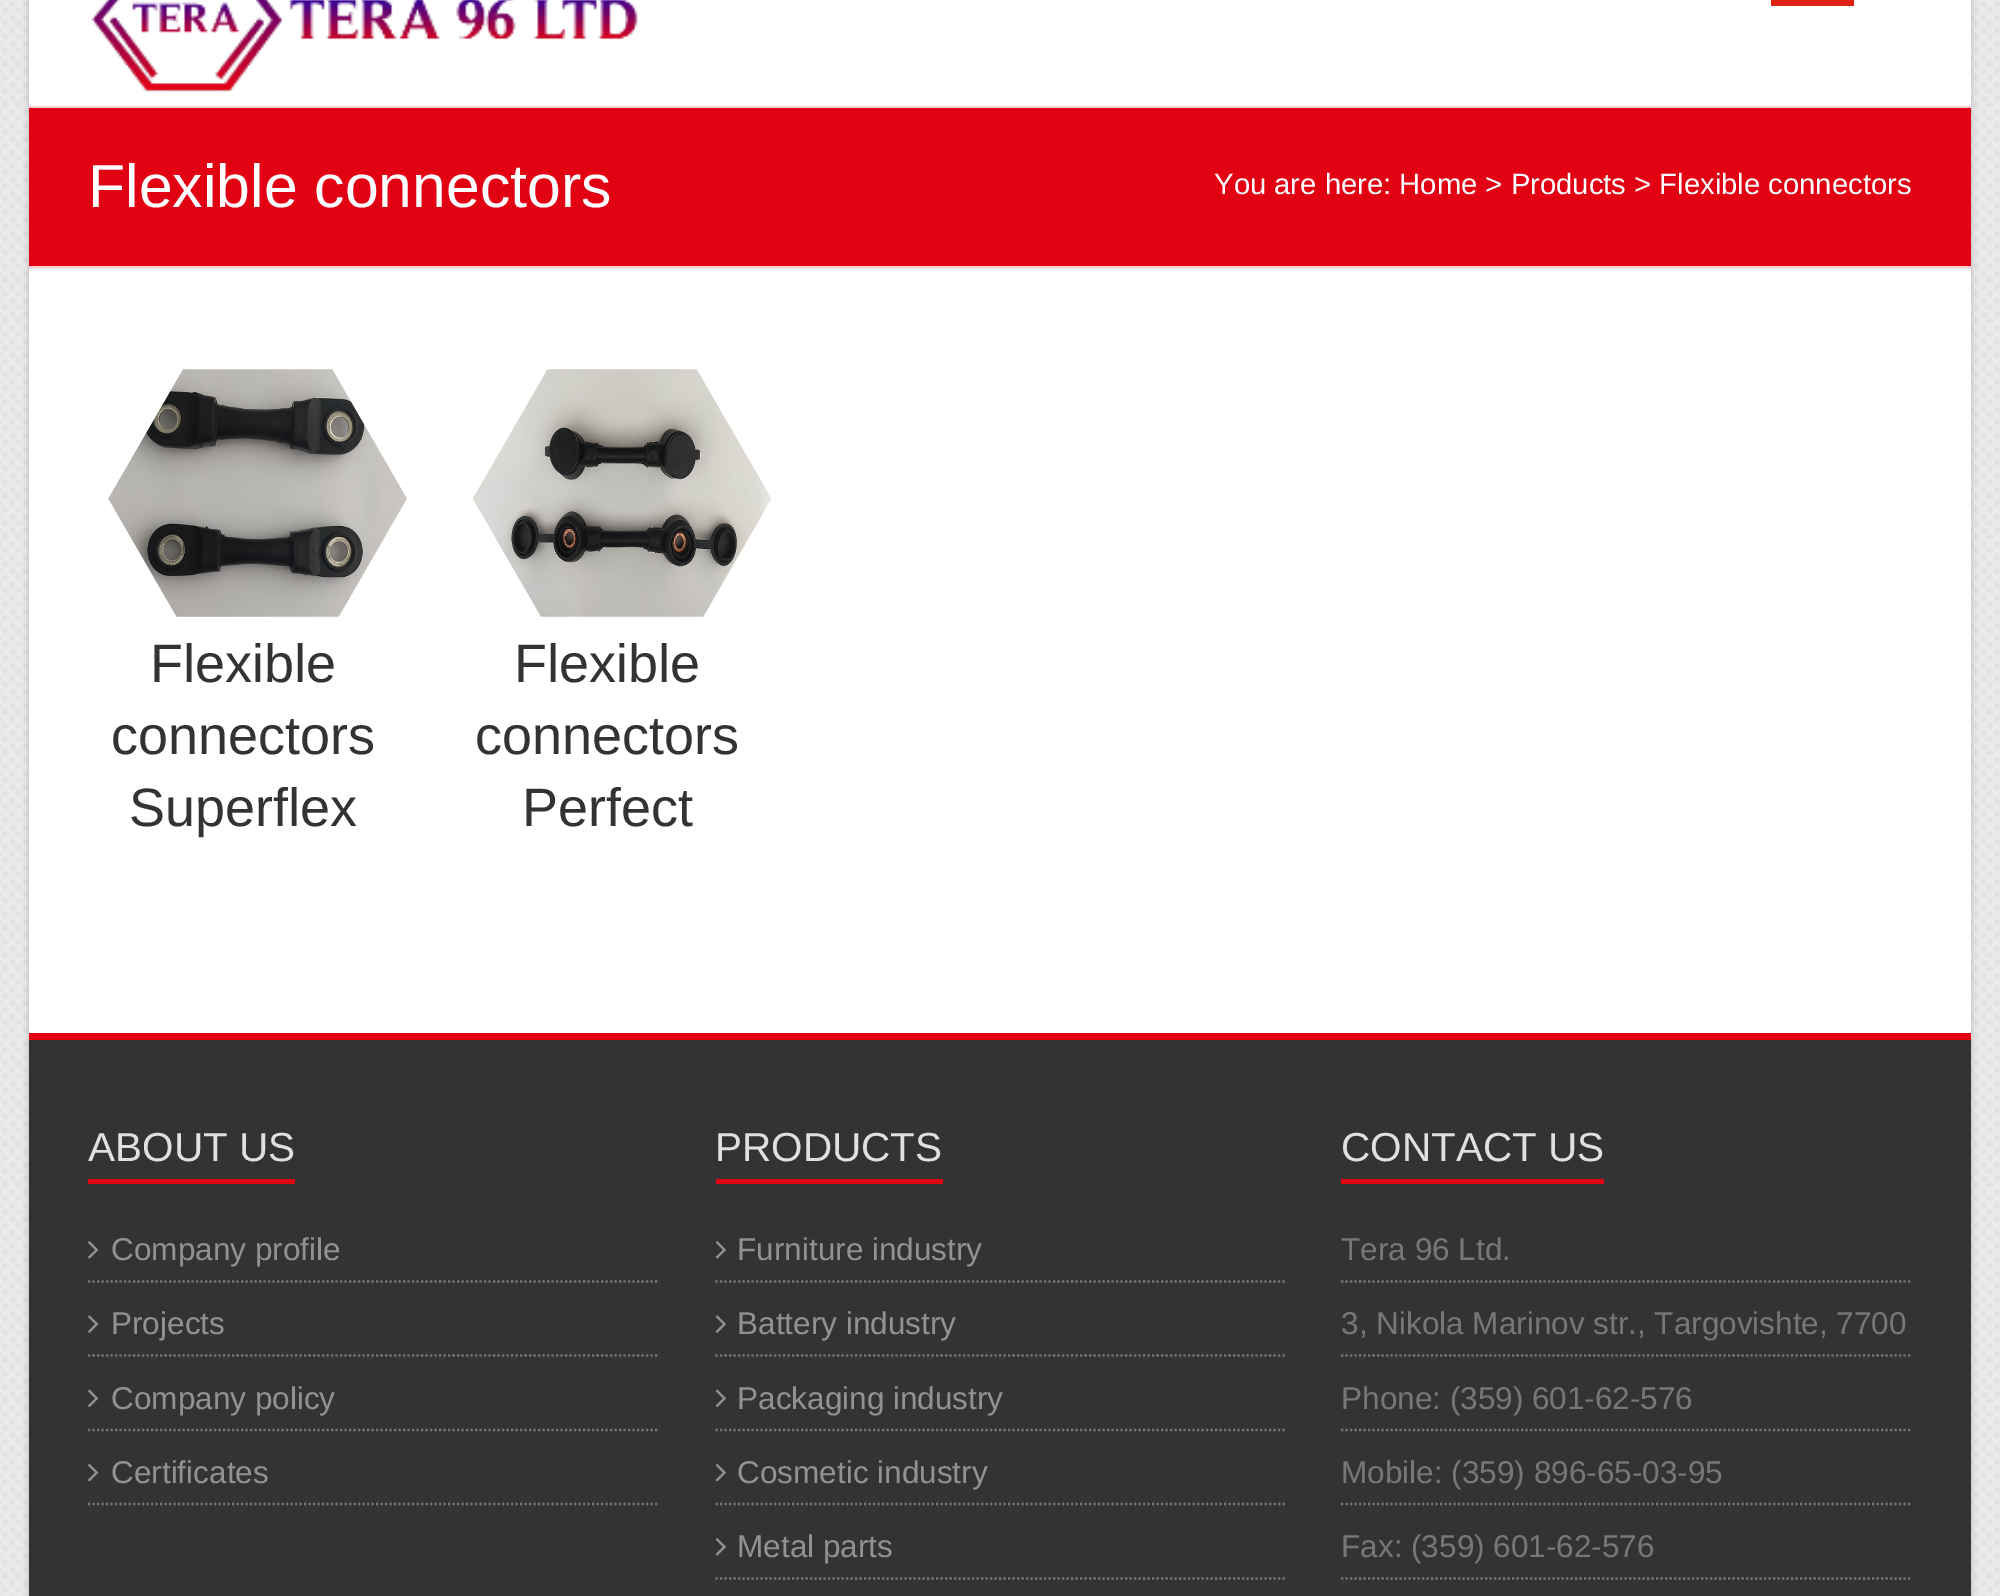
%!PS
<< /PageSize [2000 1596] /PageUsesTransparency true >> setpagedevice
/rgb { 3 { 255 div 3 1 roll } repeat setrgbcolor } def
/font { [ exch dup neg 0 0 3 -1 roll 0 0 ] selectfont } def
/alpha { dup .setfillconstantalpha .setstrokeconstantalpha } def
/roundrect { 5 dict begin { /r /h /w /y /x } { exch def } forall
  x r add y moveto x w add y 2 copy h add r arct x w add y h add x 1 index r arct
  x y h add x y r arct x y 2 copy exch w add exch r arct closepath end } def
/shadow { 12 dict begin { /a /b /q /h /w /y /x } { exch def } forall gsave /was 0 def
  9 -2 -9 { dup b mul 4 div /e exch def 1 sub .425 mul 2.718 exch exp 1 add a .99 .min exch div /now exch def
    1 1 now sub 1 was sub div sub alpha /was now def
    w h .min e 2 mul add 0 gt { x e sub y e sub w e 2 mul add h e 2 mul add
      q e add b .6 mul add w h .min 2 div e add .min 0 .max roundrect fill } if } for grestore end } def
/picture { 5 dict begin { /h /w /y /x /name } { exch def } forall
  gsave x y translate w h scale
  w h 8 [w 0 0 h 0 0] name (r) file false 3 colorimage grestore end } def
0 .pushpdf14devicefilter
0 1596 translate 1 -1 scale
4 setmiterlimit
234 234 234 rgb
0 0 2000 1596 rectfill
(img/1.rgb) 0 2 2000 1594 picture
0 0 0 rgb
29 -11 1942 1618 0 3.5 0.2 shadow
255 255 255 rgb
29 0 1942 1033 rectfill
234 234 234 rgb
29 268 1942 2 rectfill
(img/2.rgb) 91 0 547 93 picture
[
  [1771 0 83 6 222 33 16]
  [29 108 1942 158 226 0 19]
  [29 106 1942 2 249 204 208]
  [29 266 1942 2 249 204 208]
] { aload pop rgb rectfill } forall
(img/3.rgb) 108 369 299 248 picture
(img/4.rgb) 473 369 299 248 picture
[
  [29 1040 1942 556 51 51 51]
  [29 1033 1942 7 226 0 19]
  [88 1179 207 5 226 0 19]
] { aload pop rgb rectfill } forall
119 119 119 rgb
2.2 setlinewidth
[2.25 2.25] 0 setdash
88 1281.5 moveto 659 1281.5 lineto stroke
(img/5.rgb) 88 1241 11 18 picture
88 1355.5 moveto 659 1355.5 lineto stroke
(img/6.rgb) 88 1315 11 18 picture
88 1430 moveto 659 1430 lineto stroke
(img/7.rgb) 88 1389 11 19 picture
88 1504 moveto 659 1504 lineto stroke
(img/8.rgb) 88 1463 11 19 picture
226 0 19 rgb
716 1179 227 5 rectfill
119 119 119 rgb
715.5 1281.5 moveto 1285 1281.5 lineto stroke
(img/9.rgb) 715 1241 11 18 picture
715.5 1355.5 moveto 1285 1355.5 lineto stroke
(img/10.rgb) 715 1315 11 18 picture
715.5 1430 moveto 1285 1430 lineto stroke
(img/11.rgb) 715 1389 11 19 picture
715.5 1504 moveto 1285 1504 lineto stroke
(img/12.rgb) 715 1463 11 19 picture
715.5 1578.5 moveto 1285 1578.5 lineto stroke
(img/9.rgb) 715 1538 11 18 picture
226 0 19 rgb
1341 1179 263 5 rectfill
119 119 119 rgb
1341 1281.5 moveto 1912.5 1281.5 lineto stroke
1341 1355.5 moveto 1912.5 1355.5 lineto stroke
1341 1430 moveto 1912.5 1430 lineto stroke
1341 1504 moveto 1912.5 1504 lineto stroke
1341 1578.5 moveto 1912.5 1578.5 lineto stroke
/LiberationSans-Regular 60.75 font
255 255 255 rgb
88 207 moveto (Flexible connectors) show
/LiberationSans-Regular 29.25 font
1214 194 moveto (You are here: Home > Products > Flexible connectors) show
/LiberationSans-Regular 54 font
51 51 51 rgb
[
  [(Flexible) 150 682]
  [(connectors) 111 754]
  [(Superflex) 129 826]
  [(Flexible) 514 682]
  [(connectors) 475 754]
  [(Perfect) 522 826]
] { aload pop moveto show } forall
/LiberationSans-Regular 40.5 font
224 224 224 rgb
88 1161 moveto (ABOUT US) show
/LiberationSans-Regular 31.5 font
144 146 148 rgb
[
  [(Company profile) 111 1260]
  [(Projects) 111 1334]
  [(Company policy) 111 1409]
  [(Certificates) 111 1483]
] { aload pop moveto show } forall
/LiberationSans-Regular 40.5 font
224 224 224 rgb
715 1161 moveto (PRODUCTS) show
/LiberationSans-Regular 31.5 font
144 146 148 rgb
[
  [(Furniture industry) 737 1260]
  [(Battery industry) 737 1334]
  [(Packaging industry) 737 1409]
  [(Cosmetic industry) 737 1483]
  [(Metal parts) 737 1557]
] { aload pop moveto show } forall
/LiberationSans-Regular 40.5 font
224 224 224 rgb
1341 1161 moveto (CONTACT US) show
/LiberationSans-Regular 31.5 font
119 119 119 rgb
[
  [(Tera 96 Ltd.) 1341 1260]
  [(3, Nikola Marinov str., Targovishte, 7700) 1341 1334]
  [(Phone: \(359\) 601-62-576) 1341 1409]
  [(Mobile: \(359\) 896-65-03-95) 1341 1483]
  [(Fax: \(359\) 601-62-576) 1341 1557]
] { aload pop moveto show } forall
.poppdf14devicefilter showpage
